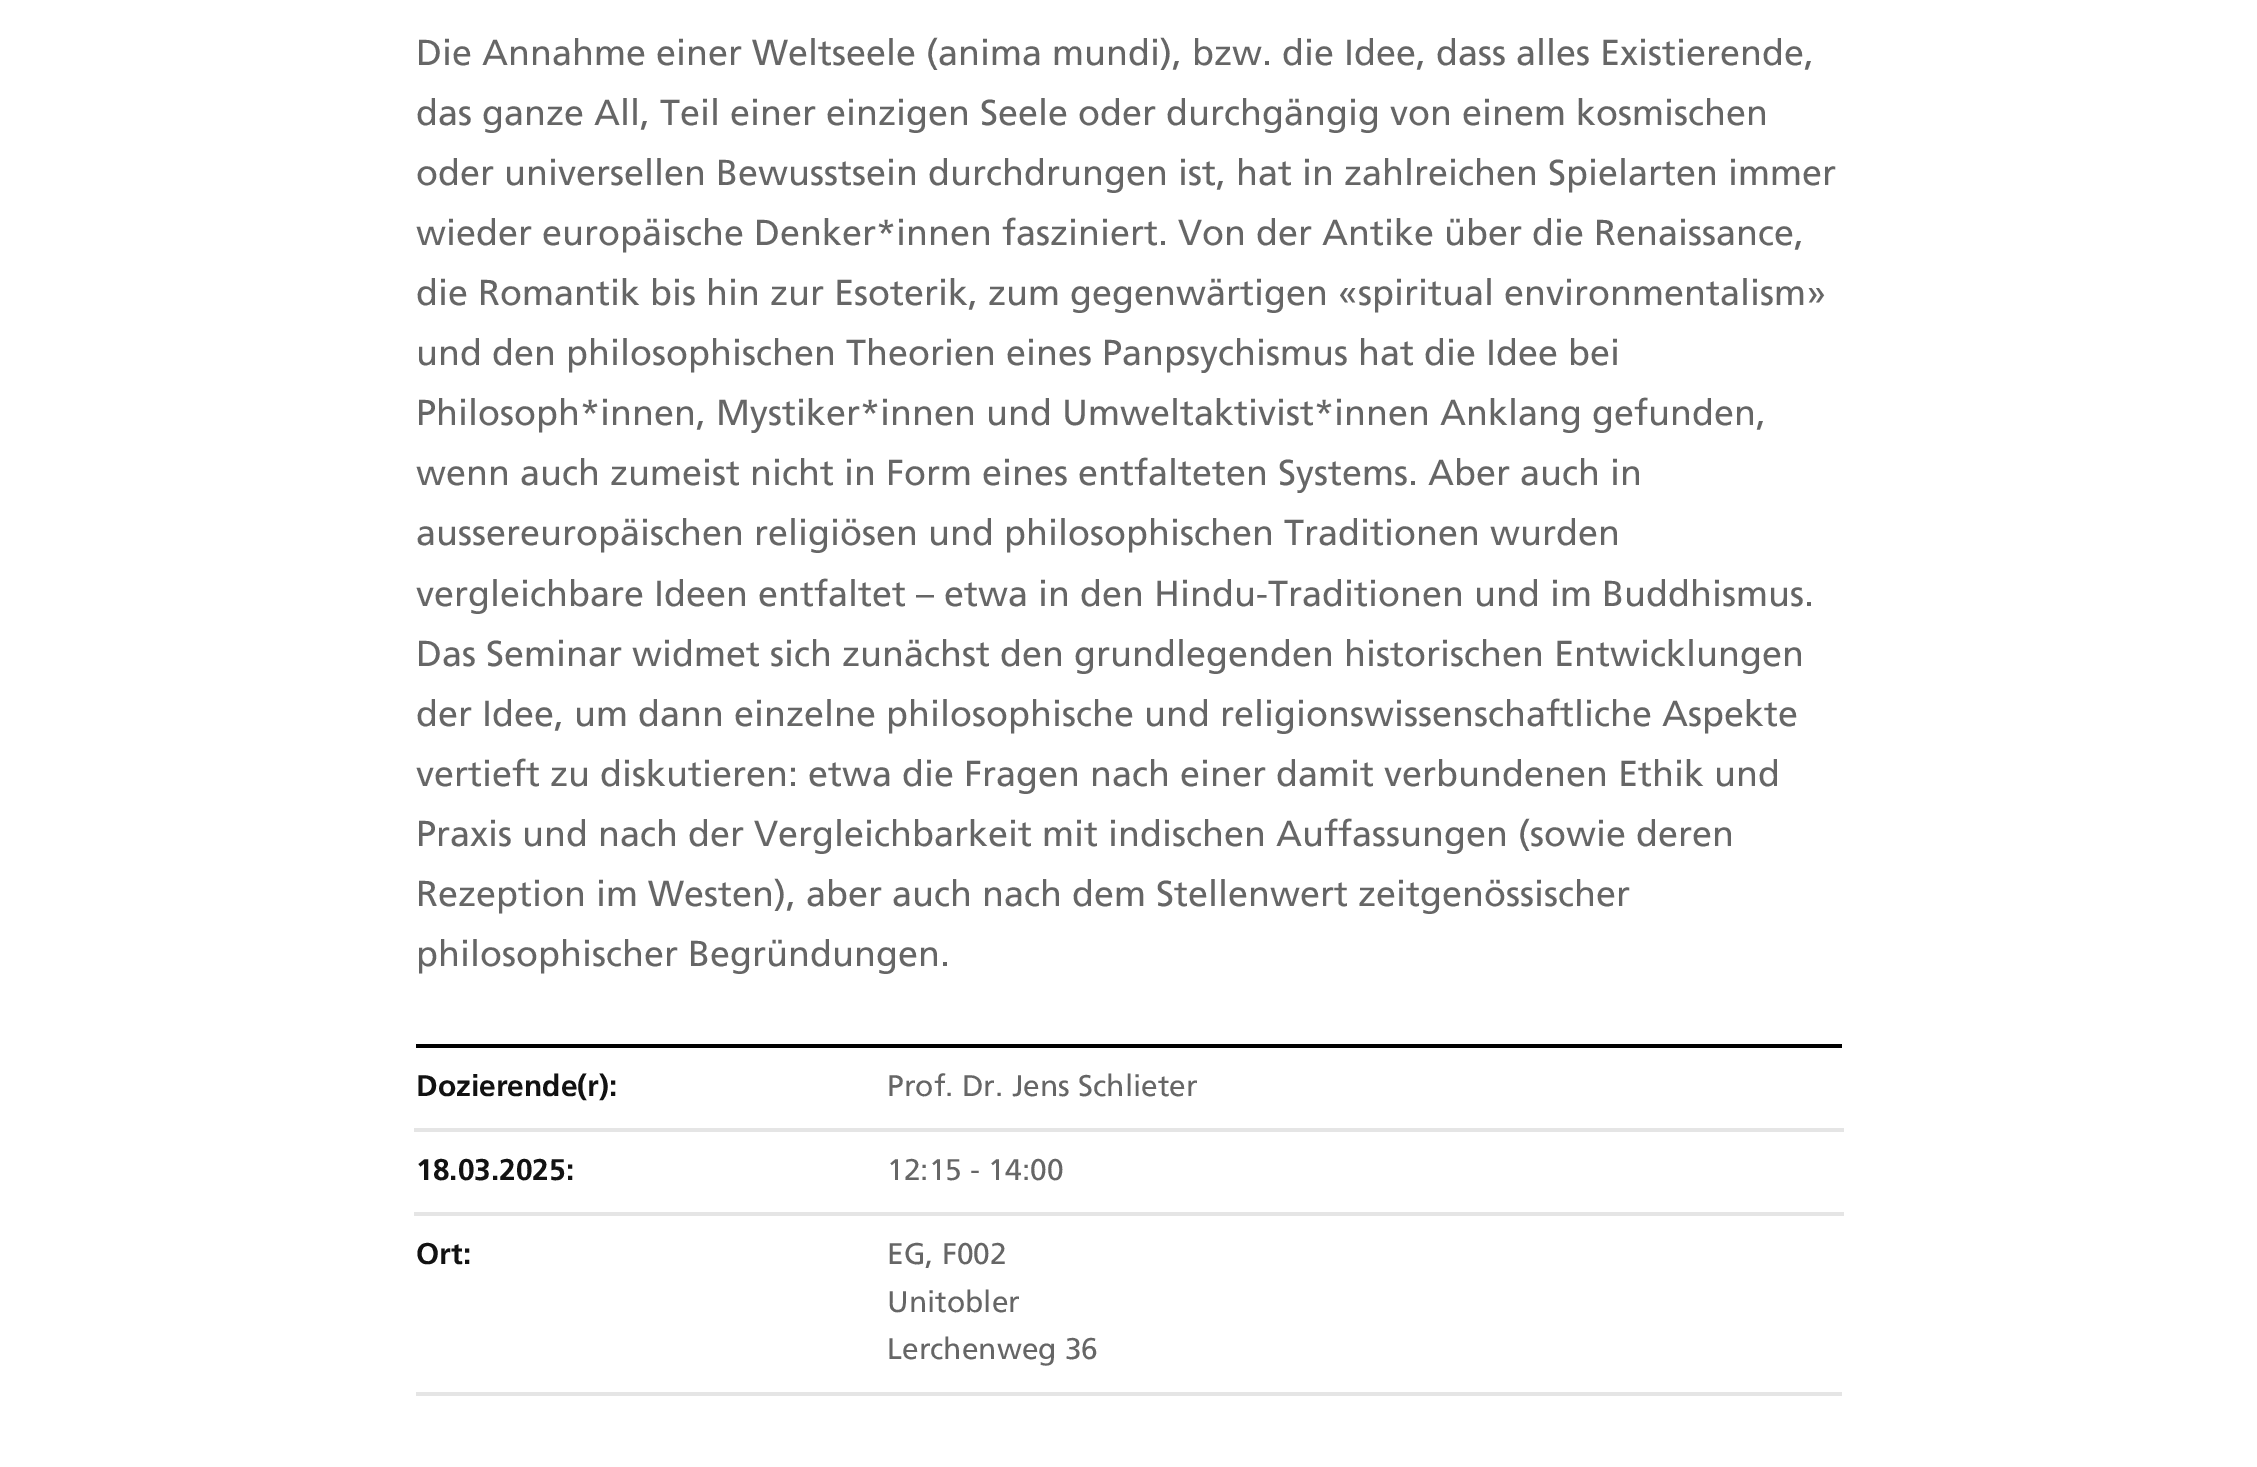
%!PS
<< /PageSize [2257 1467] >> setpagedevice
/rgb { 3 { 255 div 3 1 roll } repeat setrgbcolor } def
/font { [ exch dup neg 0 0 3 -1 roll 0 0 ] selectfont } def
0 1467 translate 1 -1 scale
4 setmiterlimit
255 255 255 rgb
0 0 2257 1467 rectfill
[
  [416 1044 1426 4 0 0 0]
  [416 1392 1426 4 229 229 229]
  [414 1128 1430 4 229 229 229]
  [414 1212 1430 4 229 229 229]
] { aload pop rgb rectfill } forall
/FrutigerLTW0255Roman-Regular 36 font
102 102 102 rgb
[
  [(Die Annahme einer Weltseele \(anima mundi\), bzw. die Idee, dass alles Existierende,) 416 65]
  [(das ganze All, Teil einer einzigen Seele oder durchgängig von einem kosmischen) 416 125]
  [(oder universellen Bewusstsein durchdrungen ist, hat in zahlreichen Spielarten immer) 416 185]
  [(wieder europäische Denker*innen fasziniert. Von der Antike über die Renaissance,) 416 245]
  [(die Romantik bis hin zur Esoterik, zum gegenwärtigen «spiritual environmentalism») 416 305]
  [(und den philosophischen Theorien eines Panpsychismus hat die Idee bei) 416 365]
  [(Philosoph*innen, Mystiker*innen und Umweltaktivist*innen Anklang gefunden,) 416 425]
  [(wenn auch zumeist nicht in Form eines entfalteten Systems. Aber auch in) 416 485]
  [(aussereuropäischen religiösen und philosophischen Traditionen wurden) 416 545]
  [(vergleichbare Ideen entfaltet – etwa in den Hindu-Traditionen und im Buddhismus.) 416 606]
  [(Das Seminar widmet sich zunächst den grundlegenden historischen Entwicklungen) 416 666]
  [(der Idee, um dann einzelne philosophische und religionswissenschaftliche Aspekte) 416 726]
  [(vertieft zu diskutieren: etwa die Fragen nach einer damit verbundenen Ethik und) 416 786]
  [(Praxis und nach der Vergleichbarkeit mit indischen Auffassungen \(sowie deren) 416 846]
  [(Rezeption im Westen\), aber auch nach dem Stellenwert zeitgenössischer) 416 906]
  [(philosophischer Begründungen.) 416 966]
] { aload pop moveto show } forall
/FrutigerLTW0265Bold-Bold 29.9 font
18 18 18 rgb
416 1096 moveto (Dozierende\(r\):) show
/FrutigerLTW0255Roman-Regular 29.9 font
102 102 102 rgb
887 1096 moveto (Prof. Dr. Jens Schlieter) show
/FrutigerLTW0265Bold-Bold 29.9 font
18 18 18 rgb
416 1180 moveto (18.03.2025:) show
/FrutigerLTW0255Roman-Regular 29.9 font
102 102 102 rgb
887 1180 moveto (12:15 - 14:00) show
/FrutigerLTW0265Bold-Bold 29.9 font
18 18 18 rgb
416 1264 moveto (Ort:) show
/FrutigerLTW0255Roman-Regular 29.9 font
102 102 102 rgb
[
  [(EG, F002) 887 1264]
  [(Unitobler) 887 1312]
  [(Lerchenweg 36) 887 1359]
] { aload pop moveto show } forall
showpage
